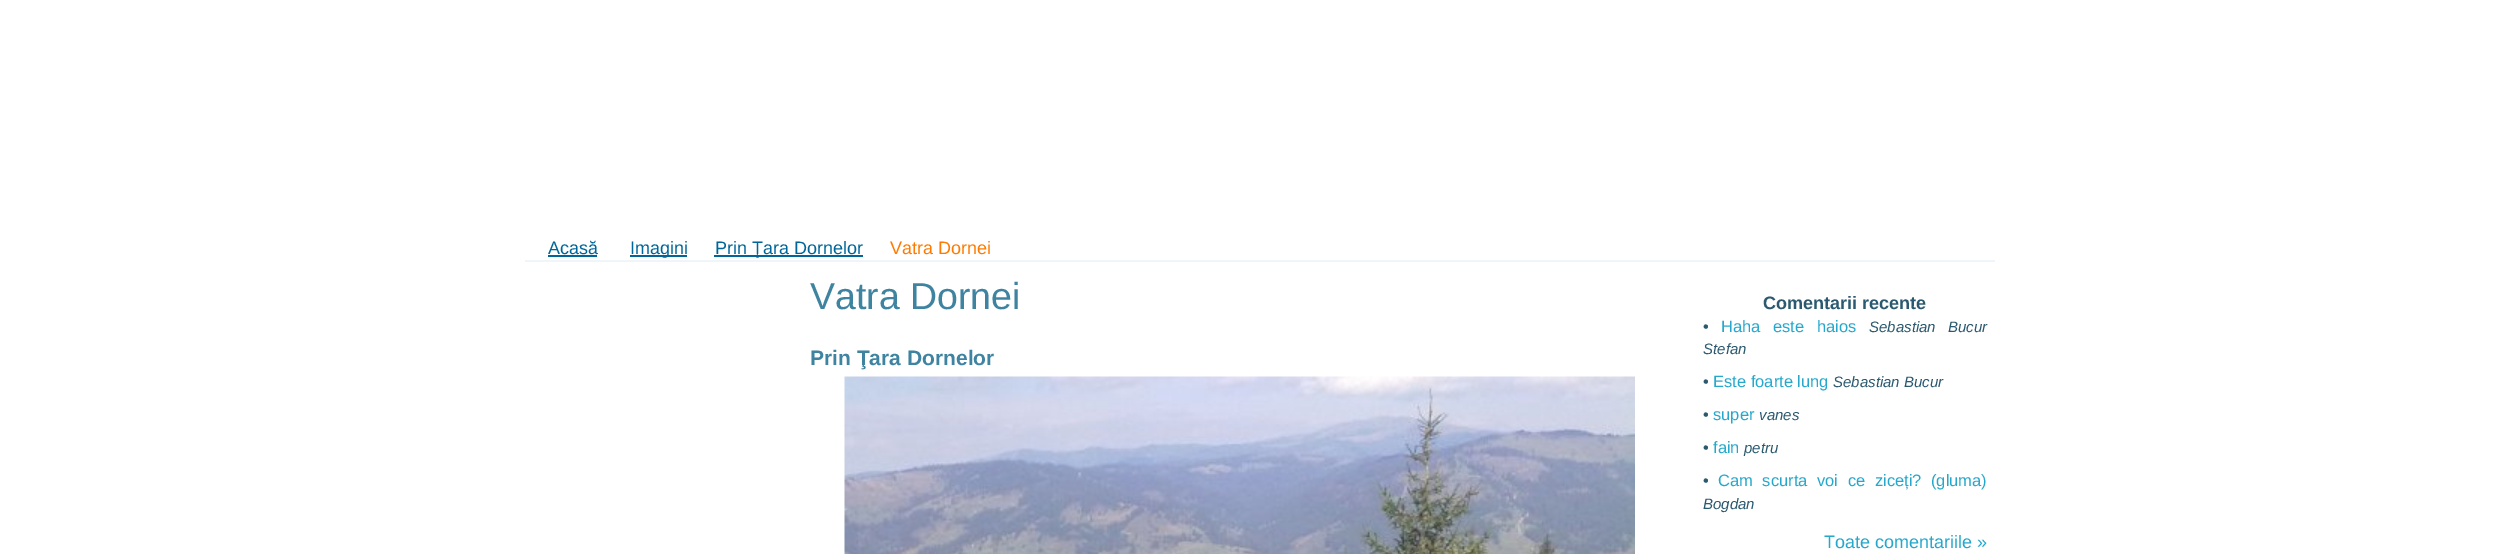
%!PS
<< /PageSize [2519 554] >> setpagedevice
/rgb { 3 { 255 div 3 1 roll } repeat setrgbcolor } def
/font { [ exch dup neg 0 0 3 -1 roll 0 0 ] selectfont } def
/picture { 5 dict begin { /h /w /y /x /name } { exch def } forall
  gsave x y translate w h scale
  w h 8 [w 0 0 h 0 0] name (r) file false 3 colorimage grestore end } def
0 554 translate 1 -1 scale
4 setmiterlimit
255 255 255 rgb
0 0 2519 554 rectfill
[
  [525 260 1470 2 239 245 248]
  [548 255 49 2 0 102 153]
  [630 255 57 2 0 102 153]
  [714 255 149 2 0 102 153]
] { aload pop rgb rectfill } forall
(img/1.rgb) 844 376 791 178 picture
/LiberationSans-Regular 18 font
[
  [(Acasă) 548 254]
  [(Imagini) 630 254]
  [(Prin Ţara Dornelor) 715 254]
] { aload pop moveto show } forall
255 122 0 rgb
890 254 moveto (Vatra Dornei) show
/LiberationSans-Regular 37.5 font
62 132 161 rgb
810 309 moveto (Vatra Dornei) show
/LiberationSans-Bold 21 font
810 365 moveto (Prin Ţara Dornelor) show
/LiberationSans-Bold 18 font
42 89 112 rgb
1763 309 moveto (Comentarii recente) show
/LiberationSans-Regular 16.5 font
1703 332 moveto (•) show
37 168 203 rgb
1721 332 moveto 8 0 32 (Haha este haios) widthshow
/LiberationSans-Italic 15 font
42 89 112 rgb
1869 332 moveto 8 0 32 (Sebastian Bucur) widthshow
1703 354 moveto (Stefan) show
/LiberationSans-Regular 16.5 font
1703 387 moveto (•) show
37 168 203 rgb
1713 387 moveto (Este foarte lung) show
/LiberationSans-Italic 15 font
42 89 112 rgb
1833 387 moveto (Sebastian Bucur) show
/LiberationSans-Regular 16.5 font
1703 420 moveto (•) show
37 168 203 rgb
1713 420 moveto (super) show
/LiberationSans-Italic 15 font
42 89 112 rgb
1759 420 moveto (vanes) show
/LiberationSans-Regular 16.5 font
1703 453 moveto (•) show
37 168 203 rgb
1713 453 moveto (fain) show
/LiberationSans-Italic 15 font
42 89 112 rgb
1744 453 moveto (petru) show
/LiberationSans-Regular 16.5 font
1703 486 moveto (•) show
37 168 203 rgb
1718 486 moveto 5 0 32 (Cam scurta voi ce ziceți? \(gluma\)) widthshow
/LiberationSans-Italic 15 font
42 89 112 rgb
1703 509 moveto (Bogdan) show
/LiberationSans-Regular 18 font
37 168 203 rgb
1824 548 moveto (Toate comentariile ») show
showpage
